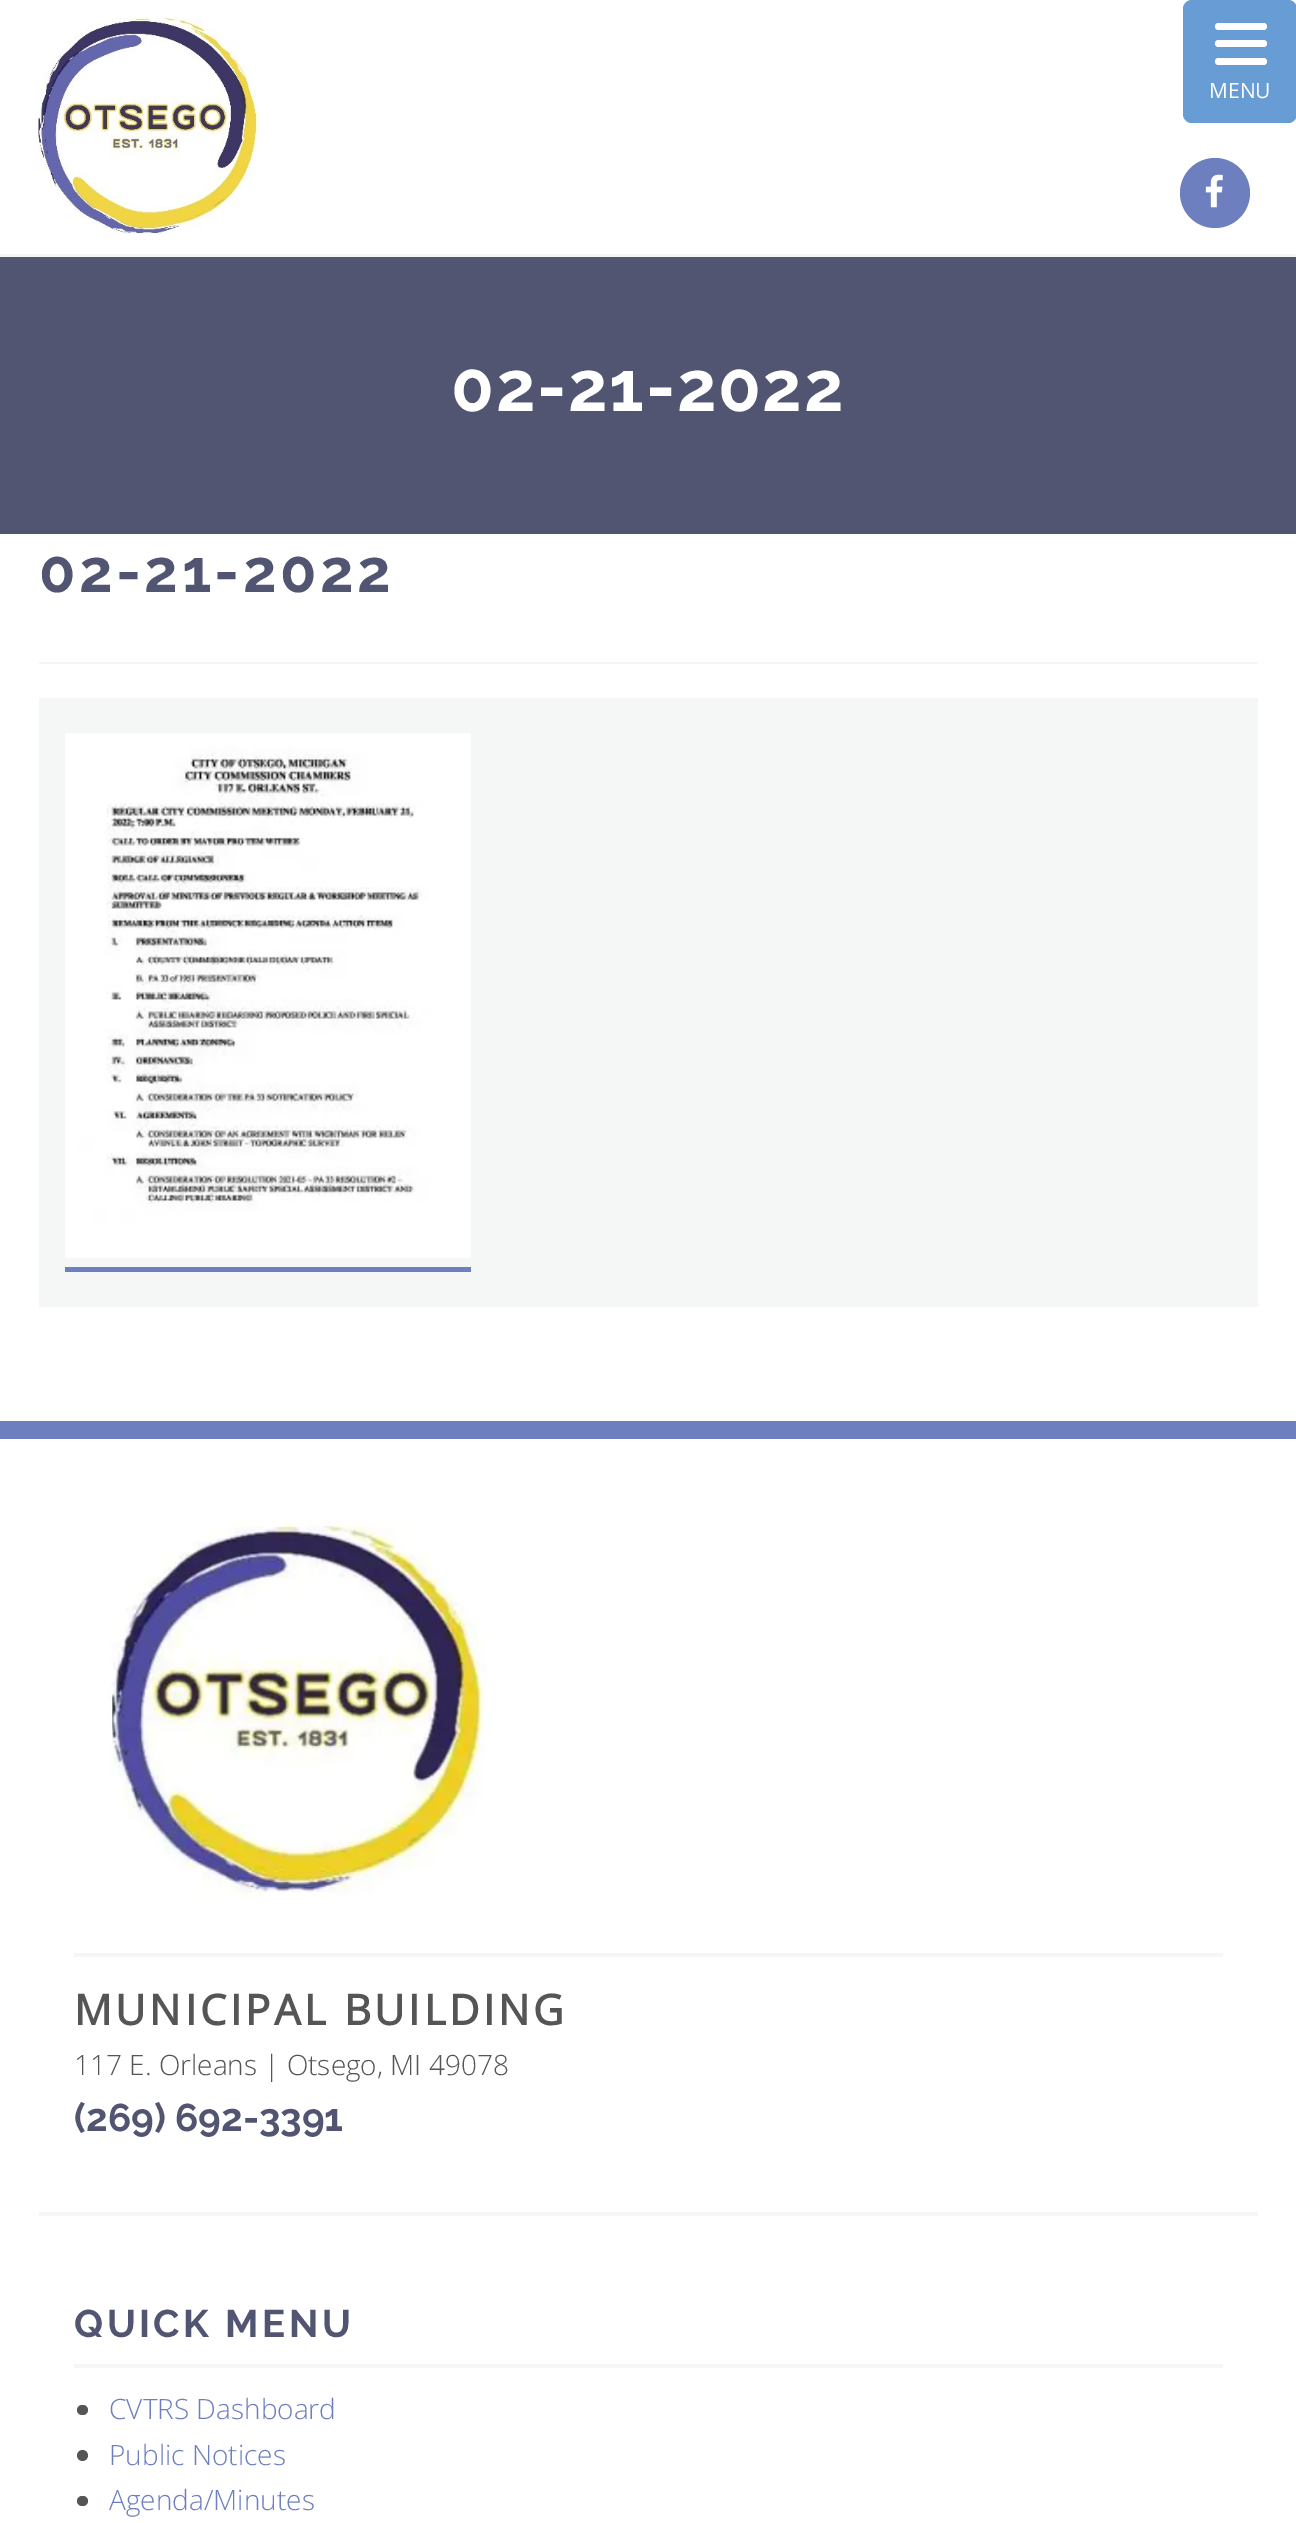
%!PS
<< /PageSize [1296 2523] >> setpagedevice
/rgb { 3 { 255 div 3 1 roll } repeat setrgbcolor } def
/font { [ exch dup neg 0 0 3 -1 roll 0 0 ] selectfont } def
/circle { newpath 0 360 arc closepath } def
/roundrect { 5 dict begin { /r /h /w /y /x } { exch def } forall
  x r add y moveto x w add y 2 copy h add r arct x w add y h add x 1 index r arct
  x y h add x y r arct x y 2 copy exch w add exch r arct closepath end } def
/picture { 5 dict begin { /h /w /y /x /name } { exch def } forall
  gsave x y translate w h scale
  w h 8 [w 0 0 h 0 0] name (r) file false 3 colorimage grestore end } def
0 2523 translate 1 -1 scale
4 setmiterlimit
255 255 255 rgb
0 0 1296 2523 rectfill
103 157 212 rgb
1183 0 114 123 9 roundrect fill
255 255 255 rgb
1215 40 52 7 3.5 roundrect fill
1215 23 52 7 3.5 roundrect fill
1215 58 52 7 3.5 roundrect fill
245 245 245 rgb
0 254 1296 3 rectfill
(img/1.rgb) 38 17 220 218 picture
109 127 191 rgb
1215 193 35 circle fill
(img/2.rgb) 1205 174 18 34 picture
[
  [0 257 1296 277 82 85 114]
  [39 662 1219 2 245 245 245]
  [39 698 1219 609 244 247 246]
] { aload pop rgb rectfill } forall
(img/3.rgb) 65 733 406 525 picture
[
  [65 1267 406 5 109 127 190]
  [0 1421 1296 18 109 127 190]
  [39 2212 1219 4 244 247 246]
  [74 1953 1149 4 244 247 246]
] { aload pop rgb rectfill } forall
(img/4.rgb) 109 1517 378 380 picture
74 2364 1149 4 rectfill
85 85 85 rgb
77 2405 11 10 5 roundrect fill
82.5 2455.5 5.5 circle fill
77 2496 11 10 5 roundrect fill
/OpenSans-Regular 21 font
255 255 255 rgb
1209 98 moveto (MENU) show
/Raleway-Thin 70 font
451 411 moveto 1.75 0 (02-21-2022) ashow
/Raleway-Thin 59.5 font
82 85 114 rgb
39 592 moveto 3.5 0 (02-21-2022) ashow
/OpenSans-Bold 42 font
85 85 85 rgb
74 2025 moveto 3.5 0 (MUNICIPAL BUILDING) ashow
/OpenSans-Light 28 font
74 2075 moveto (117 E. Orleans | Otsego, MI 49078) show
/Raleway-Thin 38.5 font
82 85 114 rgb
74 2131 moveto (\(269\) 692-3391) show
74 2337 moveto 3.5 0 (QUICK MENU) ashow
/OpenSans-Light 28 font
109 127 191 rgb
[
  [(CVTRS Dashboard) 109 2419]
  [(Public Notices) 109 2465]
  [(Agenda/Minutes) 109 2510]
] { aload pop moveto show } forall
showpage
